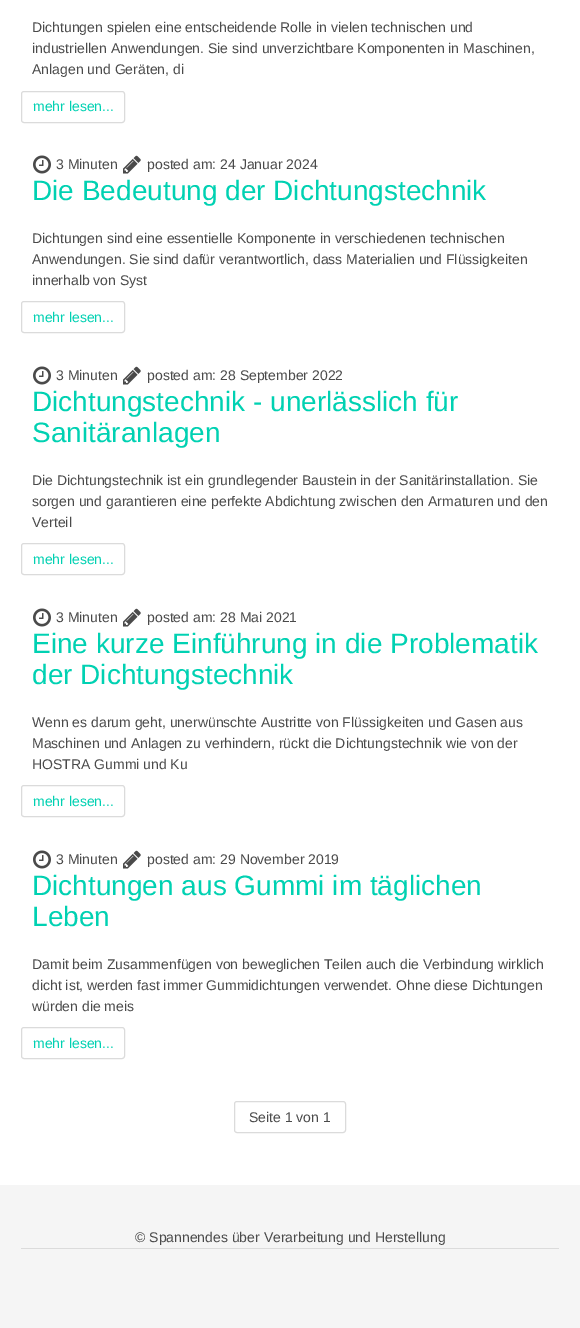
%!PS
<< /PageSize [580 1328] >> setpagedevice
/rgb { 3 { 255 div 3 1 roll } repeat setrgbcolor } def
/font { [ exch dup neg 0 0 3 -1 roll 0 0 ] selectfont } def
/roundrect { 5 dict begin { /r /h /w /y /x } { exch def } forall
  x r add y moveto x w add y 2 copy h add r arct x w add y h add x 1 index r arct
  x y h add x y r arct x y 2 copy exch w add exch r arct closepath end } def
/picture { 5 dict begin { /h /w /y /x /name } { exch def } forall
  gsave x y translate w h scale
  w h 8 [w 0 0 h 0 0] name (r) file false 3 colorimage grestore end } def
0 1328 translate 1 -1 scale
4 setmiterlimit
255 255 255 rgb
0 0 580 1328 rectfill
219 219 219 rgb
21.5 91.5 103 31 2.5 roundrect stroke
(img/1.rgb) 33 155 18 19 picture
(img/2.rgb) 123 155 18 19 picture
21.5 301.5 103 31 2.5 roundrect stroke
(img/1.rgb) 33 366 18 19 picture
(img/2.rgb) 123 366 18 19 picture
21.5 543.5 103 31 2.5 roundrect stroke
(img/1.rgb) 33 608 18 19 picture
(img/2.rgb) 123 608 18 19 picture
21.5 785.5 103 31 2.5 roundrect stroke
(img/1.rgb) 33 850 18 19 picture
(img/2.rgb) 123 850 18 19 picture
21.5 1027.5 103 31 2.5 roundrect stroke
234.5 1101.5 111 31 2.5 roundrect stroke
245 245 245 rgb
0 1185 580 143 rectfill
219 219 219 rgb
21 1248 538 1 rectfill
/LiberationSans-Regular 14 font
74 74 74 rgb
[
  [(Dichtungen spielen eine entscheidende Rolle in vielen technischen und) 32 32]
  [(industriellen Anwendungen. Sie sind unverzichtbare Komponenten in Maschinen,) 32 53]
  [(Anlagen und Geräten, di) 32 74]
] { aload pop moveto show } forall
0 209 178 rgb
33 111 moveto (mehr lesen...) show
74 74 74 rgb
56 169 moveto (3 Minuten) show
147 169 moveto (posted am: 24 Januar 2024) show
/LiberationSans-Regular 28 font
0 209 178 rgb
32 200 moveto (Die Bedeutung der Dichtungstechnik) show
/LiberationSans-Regular 14 font
74 74 74 rgb
[
  [(Dichtungen sind eine essentielle Komponente in verschiedenen technischen) 32 243]
  [(Anwendungen. Sie sind dafür verantwortlich, dass Materialien und Flüssigkeiten) 32 264]
  [(innerhalb von Syst) 32 285]
] { aload pop moveto show } forall
0 209 178 rgb
33 322 moveto (mehr lesen...) show
74 74 74 rgb
56 380 moveto (3 Minuten) show
147 380 moveto (posted am: 28 September 2022) show
/LiberationSans-Regular 28 font
0 209 178 rgb
32 411 moveto (Dichtungstechnik - unerlässlich für) show
32 442 moveto (Sanitäranlagen) show
/LiberationSans-Regular 14 font
74 74 74 rgb
[
  [(Die Dichtungstechnik ist ein grundlegender Baustein in der Sanitärinstallation. Sie) 32 485]
  [(sorgen und garantieren eine perfekte Abdichtung zwischen den Armaturen und den) 32 506]
  [(Verteil) 32 527]
] { aload pop moveto show } forall
0 209 178 rgb
33 564 moveto (mehr lesen...) show
74 74 74 rgb
56 622 moveto (3 Minuten) show
147 622 moveto (posted am: 28 Mai 2021) show
/LiberationSans-Regular 28 font
0 209 178 rgb
32 653 moveto (Eine kurze Einführung in die Problematik) show
32 684 moveto (der Dichtungstechnik) show
/LiberationSans-Regular 14 font
74 74 74 rgb
[
  [(Wenn es darum geht, unerwünschte Austritte von Flüssigkeiten und Gasen aus) 32 727]
  [(Maschinen und Anlagen zu verhindern, rückt die Dichtungstechnik wie von der) 32 748]
  [(HOSTRA Gummi und Ku) 32 769]
] { aload pop moveto show } forall
0 209 178 rgb
33 806 moveto (mehr lesen...) show
74 74 74 rgb
56 864 moveto (3 Minuten) show
147 864 moveto (posted am: 29 November 2019) show
/LiberationSans-Regular 28 font
0 209 178 rgb
32 895 moveto (Dichtungen aus Gummi im täglichen) show
32 926 moveto (Leben) show
/LiberationSans-Regular 14 font
74 74 74 rgb
[
  [(Damit beim Zusammenfügen von beweglichen Teilen auch die Verbindung wirklich) 32 969]
  [(dicht ist, werden fast immer Gummidichtungen verwendet. Ohne diese Dichtungen) 32 990]
  [(würden die meis) 32 1011]
] { aload pop moveto show } forall
0 209 178 rgb
33 1048 moveto (mehr lesen...) show
74 74 74 rgb
249 1122 moveto (Seite 1 von 1) show
135 1242 moveto (© Spannendes über Verarbeitung und Herstellung) show
showpage
